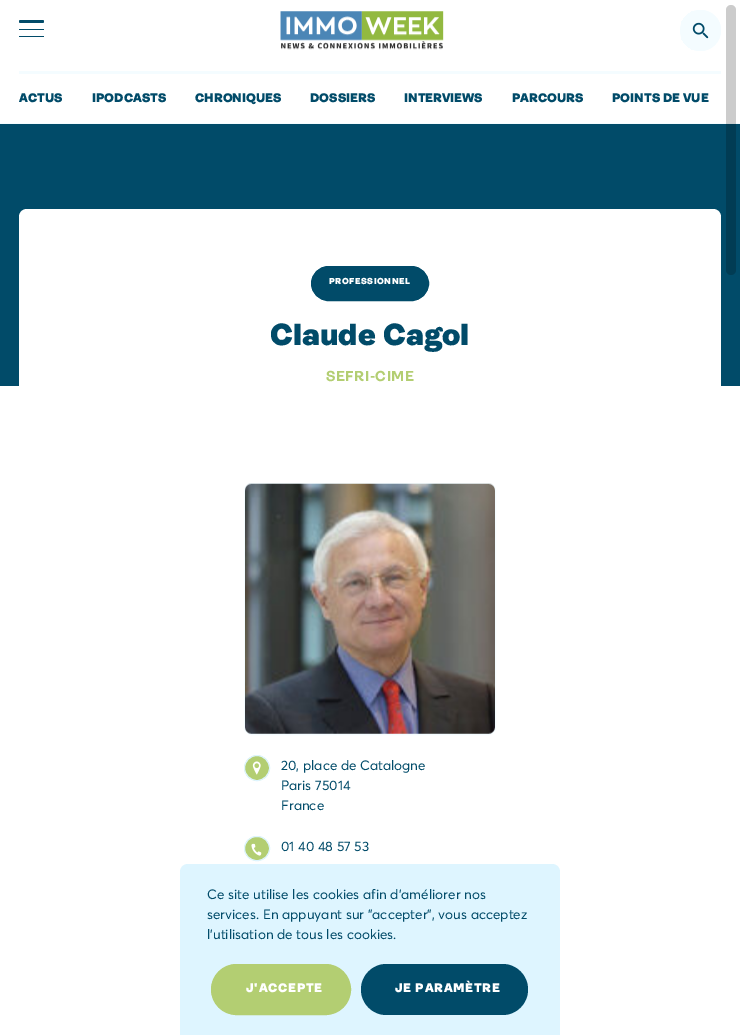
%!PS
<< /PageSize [740 1035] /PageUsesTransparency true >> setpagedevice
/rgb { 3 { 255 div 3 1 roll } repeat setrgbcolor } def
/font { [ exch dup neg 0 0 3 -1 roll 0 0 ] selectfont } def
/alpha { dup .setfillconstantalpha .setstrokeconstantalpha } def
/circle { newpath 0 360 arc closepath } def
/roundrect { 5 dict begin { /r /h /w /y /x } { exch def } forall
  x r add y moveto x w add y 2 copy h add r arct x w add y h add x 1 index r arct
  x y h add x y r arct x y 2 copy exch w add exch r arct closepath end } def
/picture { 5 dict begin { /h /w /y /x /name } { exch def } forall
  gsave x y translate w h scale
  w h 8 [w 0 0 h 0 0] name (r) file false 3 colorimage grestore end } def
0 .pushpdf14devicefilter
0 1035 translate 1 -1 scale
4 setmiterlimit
255 255 255 rgb
0 0 740 1035 rectfill
244 252 255 rgb
0 123 740 1 rectfill
19 71 702 3 rectfill
1 75 105 rgb
19 20 25 3 1.5 roundrect fill
19 29 25 1 0.5 roundrect fill
19 36 25 1 0.5 roundrect fill
(img/1.rgb) 280 11 164 39 picture
244 252 255 rgb
700.5 30.5 20.5 circle fill
700 10 moveto 706 10 711 12 715 16 curveto 730 31 714 56 694 50 curveto 700 50 707 51 712 47 curveto 724 39 722 18 709 12 curveto 704 10 699 11 694 11 curveto closepath fill
gsave
680 10 41 41 20.5 roundrect clip newpath
681 11 moveto 702 11 lineto 712 11 720 19 720 29 curveto 720 32 lineto 720 42 712 50 702 50 curveto 681 50 lineto closepath fill
grestore
(img/2.rgb) 692 22 17 17 picture
1 75 105 rgb
0 124 740 262 rectfill
0.2 alpha
0 0 0 rgb
726 5 10 270 5 roundrect fill
1 alpha
255 255 255 rgb
27 209 moveto 713 209 lineto 717.5 209 721 212.5 721 217 curveto 721 388 lineto 19 388 lineto 19 217 lineto 19 212.5 22.5 209 27 209 curveto closepath fill
1 75 105 rgb
311.5 266.5 117 34 17 roundrect gsave fill grestore
stroke
244 252 255 rgb
244.5 483.5 251 251 7.5 roundrect gsave fill grestore
stroke
(img/3.rgb) 245 483 250 251 picture
179 206 114 rgb
257 768 12.5 circle gsave fill grestore
222 245 255 rgb
stroke
(img/4.rgb) 252 761 9 14 picture
179 206 114 rgb
244.5 836.5 25 24 12 roundrect gsave fill grestore
222 245 255 rgb
stroke
(img/5.rgb) 251 843 11 13 picture
188 864 moveto 552 864 lineto 556.5 864 560 867.5 560 872 curveto 560 1035 lineto 180 1035 lineto 180 872 lineto 180 867.5 183.5 864 188 864 curveto closepath fill
179 206 114 rgb
211.5 964.5 139 50 25 roundrect gsave fill grestore
stroke
1 75 105 rgb
361 964 167 51 25.5 roundrect fill
/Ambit-Black 12.5 font
[
  [(ACTUS) 19 102]
  [(IPODCASTS) 92 102]
  [(CHRONIQUES) 195 102]
  [(DOSSIERS) 310 102]
  [(INTERVIEWS) 404 102]
  [(PARCOURS) 512 102]
  [(POINTS DE VUE) 612 102]
] { aload pop moveto show } forall
/Ambit-Black 8.75 font
255 255 255 rgb
329 284 moveto 0.5 0 (PROFESSIONNEL) ashow
/Ambit-Black 30.75 font
1 75 105 rgb
270 345 moveto (Claude Cagol) show
/Ambit-Bold 14.5 font
179 206 114 rgb
326 381 moveto 0.5 0 (SEFRI-CIME) ashow
/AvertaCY-Regular 13.5 font
1 75 105 rgb
[
  [(20, place de Catalogne) 281 770]
  [(Paris 75014) 281 790]
  [(France) 281 810]
  [(01 40 48 57 53) 281 851]
  [(Ce site utilise les cookies afin d'améliorer nos) 207 899]
  [(services. En appuyant sur "accepter", vous acceptez) 207 919]
  [(l'utilisation de tous les cookies.) 207 939]
] { aload pop moveto show } forall
/Ambit-Black 12.5 font
255 255 255 rgb
246 992 moveto 0.75 0 (J'ACCEPTE) ashow
395 992 moveto 0.75 0 (JE PARAMÈTRE) ashow
.poppdf14devicefilter showpage
